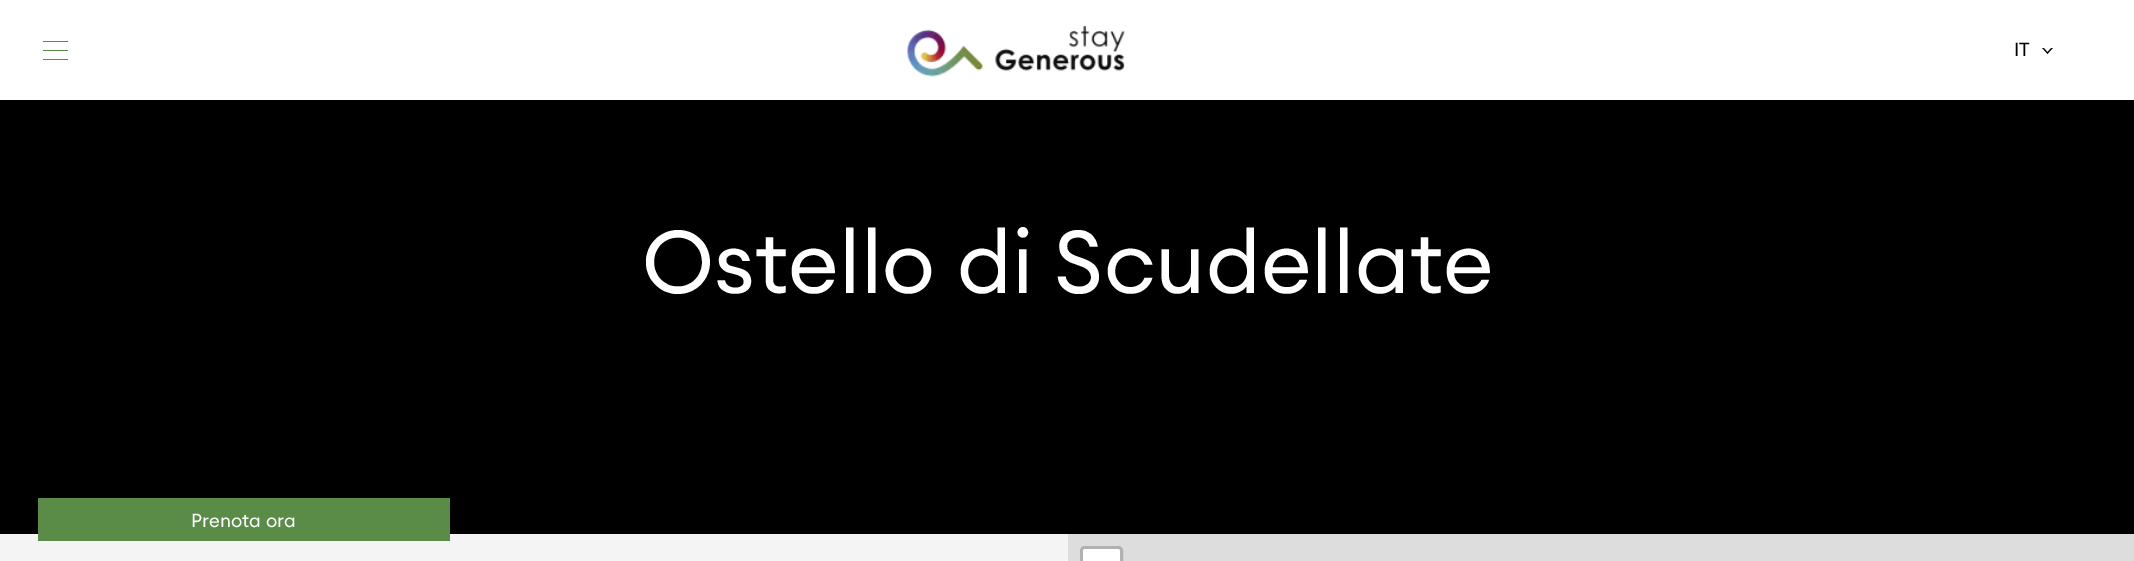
%!PS
<< /PageSize [2134 561] >> setpagedevice
/rgb { 3 { 255 div 3 1 roll } repeat setrgbcolor } def
/font { [ exch dup neg 0 0 3 -1 roll 0 0 ] selectfont } def
/roundrect { 5 dict begin { /r /h /w /y /x } { exch def } forall
  x r add y moveto x w add y 2 copy h add r arct x w add y h add x 1 index r arct
  x y h add x y r arct x y 2 copy exch w add exch r arct closepath end } def
/picture { 5 dict begin { /h /w /y /x /name } { exch def } forall
  gsave x y translate w h scale
  w h 8 [w 0 0 h 0 0] name (r) file false 3 colorimage grestore end } def
0 561 translate 1 -1 scale
4 setmiterlimit
244 244 244 rgb
0 0 2134 561 rectfill
[
  [0 0 2134 100 255 255 255]
  [43 59 25 1 90 140 72]
  [43 50 25 1 90 140 72]
  [43 41 25 1 90 140 72]
] { aload pop rgb rectfill } forall
(img/1.rgb) 907 26 218 51 picture
gsave
2041 48 13 6 rectclip
0 0 0 rgb
1.1 setlinewidth
2042.5 47.5 moveto 2047.5 53 lineto 2052.5 47.5 lineto stroke
grestore
[
  [0 100 2134 434 0 0 0]
  [38 498 412 43 90 140 72]
  [1068 534 1066 27 221 221 221]
] { aload pop rgb rectfill } forall
177 177 177 rgb
3 setlinewidth
1081.5 547.5 40 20 3.5 roundrect stroke
255 255 255 rgb
1085.5 549 moveto 1117.5 549 lineto 1119 549 1120 550 1120 551.5 curveto 1120 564 lineto 1083 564 lineto 1083 551.5 lineto 1083 550 1084 549 1085.5 549 curveto closepath fill
/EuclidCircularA-Regular 18.75 font
0 0 0 rgb
2014 56 moveto (IT) show
/EuclidCircularA-Regular 87.5 font
255 255 255 rgb
642 293 moveto (Ostello di Scudellate) show
/EuclidCircularA-Regular 18.75 font
191 527 moveto (Prenota ora) show
showpage
